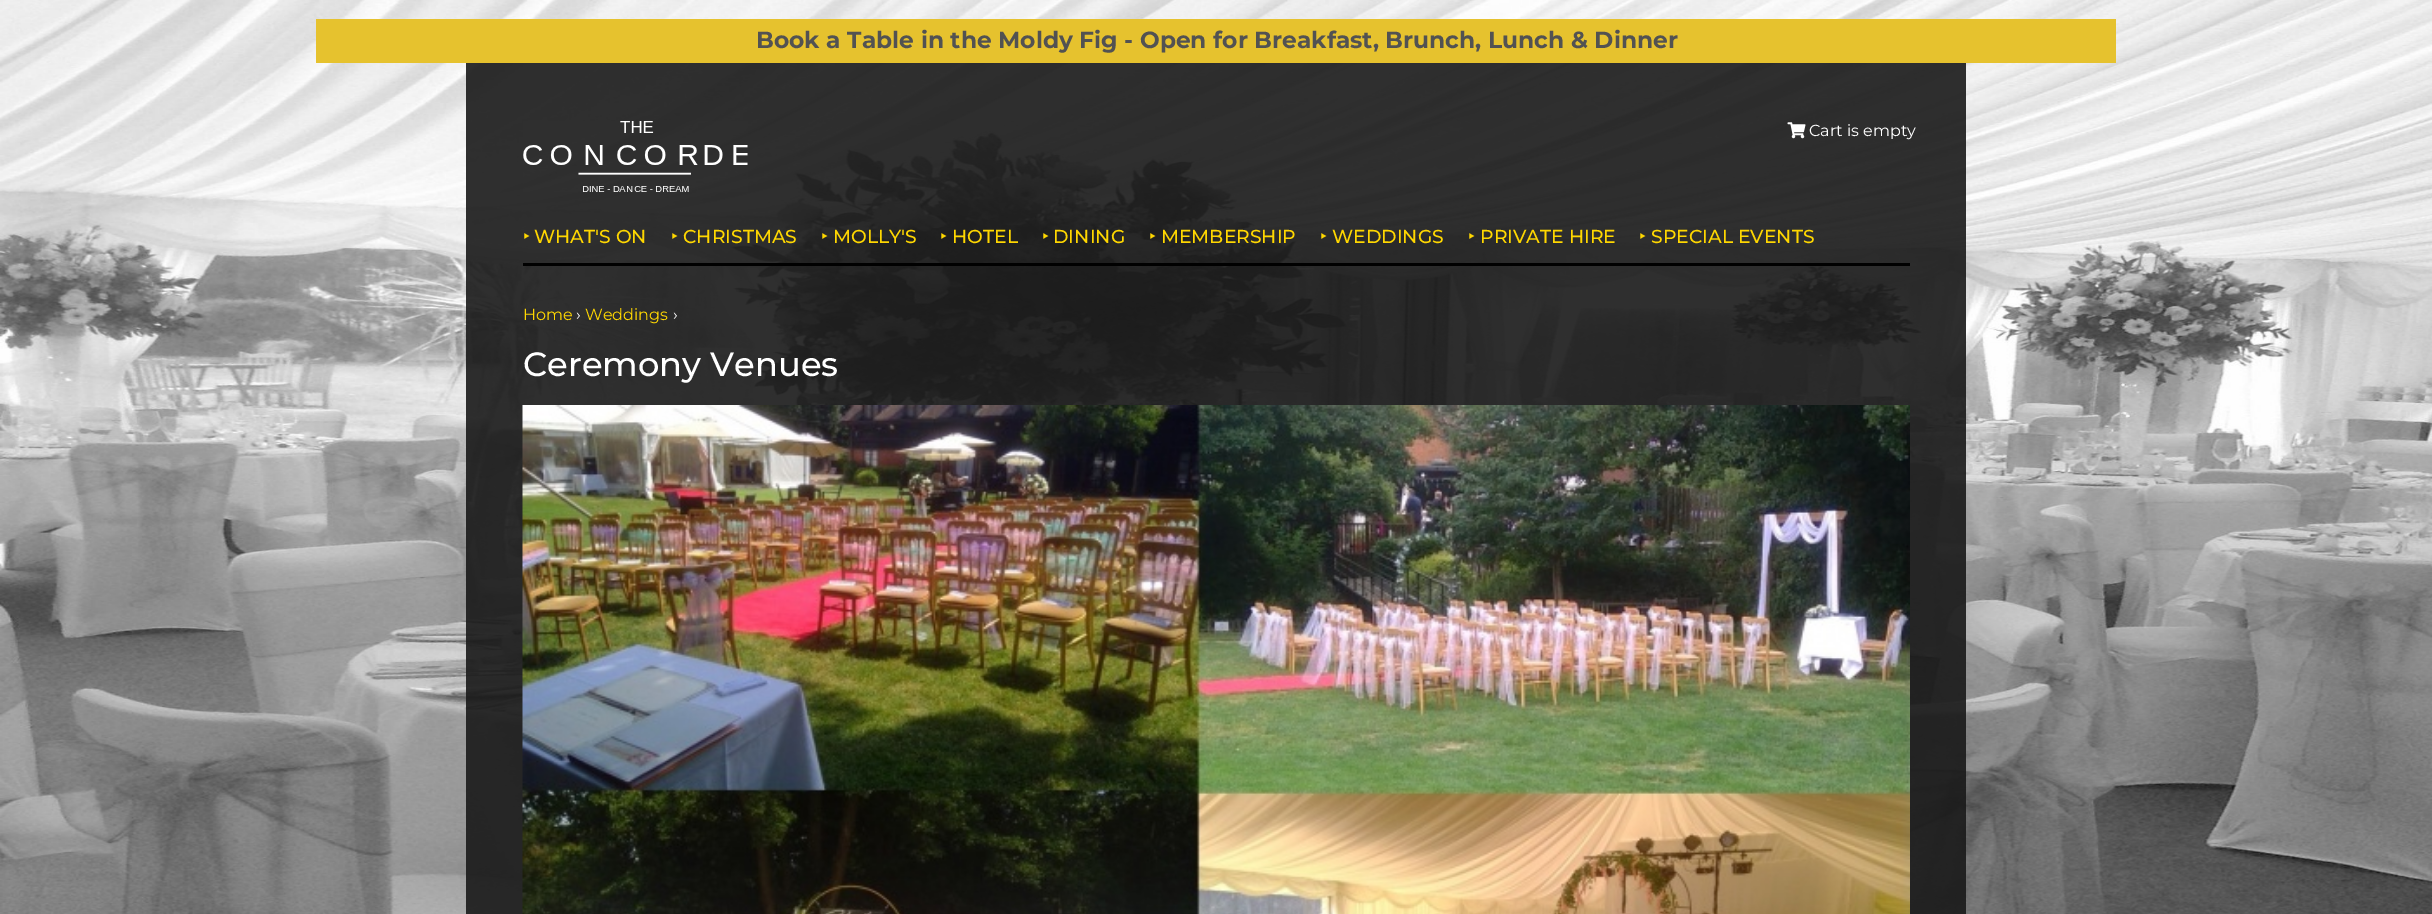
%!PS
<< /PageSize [2432 914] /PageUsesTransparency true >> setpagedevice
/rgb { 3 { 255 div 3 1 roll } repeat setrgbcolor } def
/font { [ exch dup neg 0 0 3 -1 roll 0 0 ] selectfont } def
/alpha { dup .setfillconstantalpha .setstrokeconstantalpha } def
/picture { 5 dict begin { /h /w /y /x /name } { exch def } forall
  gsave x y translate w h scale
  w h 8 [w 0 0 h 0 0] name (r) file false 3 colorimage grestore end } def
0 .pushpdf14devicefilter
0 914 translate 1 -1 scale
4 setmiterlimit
255 255 255 rgb
0 0 2432 914 rectfill
(img/1.rgb) 0 0 2432 914 picture
[
  [316 19 1800 44 230 194 46]
] { aload pop rgb rectfill } forall
0.9 alpha
[
  [466 63 1500 851 25 25 25]
] { aload pop rgb rectfill } forall
1 alpha
[
  [523 263 1387 3 0 0 0]
] { aload pop rgb rectfill } forall
(img/2.rgb) 523 121 225 71 picture
(img/3.rgb) 1787 122 19 17 picture
(img/4.rgb) 522 405 1388 509 picture
/Montserrat-Bold 23.35 font
82 82 82 rgb
756 48 moveto (Book a Table in the Moldy Fig - Open for Breakfast, Brunch, Lunch & Dinner) show
/Montserrat-Regular 16 font
255 255 255 rgb
1809 136 moveto (Cart is empty) show
/NotoSans-Medium 18.75 font
255 215 0 rgb
523 243 moveto (‣) show
/Montserrat-Medium 18.75 font
534 243 moveto (WHAT'S ON) show
/NotoSans-Medium 18.75 font
671 243 moveto (‣) show
/Montserrat-Medium 18.75 font
683 243 moveto (CHRISTMAS) show
/NotoSans-Medium 18.75 font
821 243 moveto (‣) show
/Montserrat-Medium 18.75 font
833 243 moveto (MOLLY'S) show
/NotoSans-Medium 18.75 font
940 243 moveto (‣) show
/Montserrat-Medium 18.75 font
952 243 moveto (HOTEL) show
/NotoSans-Medium 18.75 font
1042 243 moveto (‣) show
/Montserrat-Medium 18.75 font
1053 243 moveto (DINING) show
/NotoSans-Medium 18.75 font
1149 243 moveto (‣) show
/Montserrat-Medium 18.75 font
1161 243 moveto (MEMBERSHIP) show
/NotoSans-Medium 18.75 font
1320 243 moveto (‣) show
/Montserrat-Medium 18.75 font
1332 243 moveto (WEDDINGS) show
/NotoSans-Medium 18.75 font
1468 243 moveto (‣) show
/Montserrat-Medium 18.75 font
1480 243 moveto (PRIVATE HIRE) show
/NotoSans-Medium 18.75 font
1639 243 moveto (‣) show
/Montserrat-Medium 18.75 font
1651 243 moveto (SPECIAL EVENTS) show
/Montserrat-Regular 16 font
523 320 moveto (Home) show
255 255 255 rgb
576 320 moveto (›) show
255 215 0 rgb
585 320 moveto (Weddings) show
255 255 255 rgb
673 320 moveto (›) show
/Montserrat-Medium 33.75 font
523 376 moveto (Ceremony Venues) show
.poppdf14devicefilter showpage
